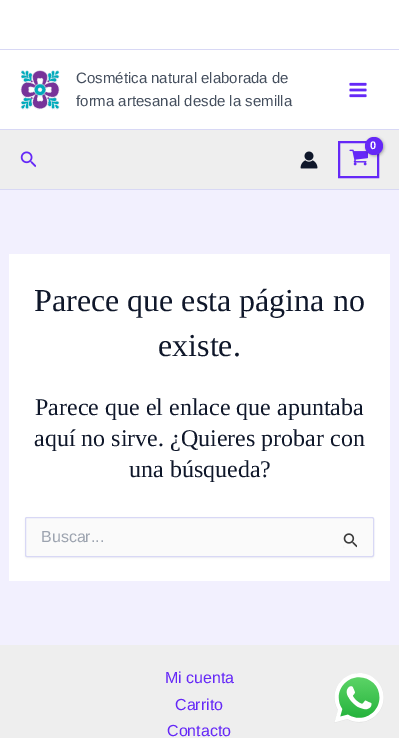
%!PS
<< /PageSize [399 738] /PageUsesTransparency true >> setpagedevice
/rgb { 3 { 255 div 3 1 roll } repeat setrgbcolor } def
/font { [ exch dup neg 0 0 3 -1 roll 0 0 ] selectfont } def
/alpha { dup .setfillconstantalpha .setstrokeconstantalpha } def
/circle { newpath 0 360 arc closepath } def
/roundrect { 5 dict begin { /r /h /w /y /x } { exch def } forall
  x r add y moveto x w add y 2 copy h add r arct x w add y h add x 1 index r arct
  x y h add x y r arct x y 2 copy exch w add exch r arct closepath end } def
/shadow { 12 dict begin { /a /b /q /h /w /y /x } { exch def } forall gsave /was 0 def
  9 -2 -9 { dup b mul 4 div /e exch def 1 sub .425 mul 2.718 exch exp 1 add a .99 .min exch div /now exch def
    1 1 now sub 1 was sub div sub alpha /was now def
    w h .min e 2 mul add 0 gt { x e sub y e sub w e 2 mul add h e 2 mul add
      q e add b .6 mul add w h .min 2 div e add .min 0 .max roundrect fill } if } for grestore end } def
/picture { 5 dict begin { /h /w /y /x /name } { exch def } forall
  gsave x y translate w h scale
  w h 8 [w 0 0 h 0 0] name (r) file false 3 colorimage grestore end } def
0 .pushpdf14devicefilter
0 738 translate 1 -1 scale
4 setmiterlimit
242 240 254 rgb
0 0 399 738 rectfill
[
  [0 0 399 49 255 255 255]
  [0 49 399 1 216 216 245]
  [0 50 399 79 255 255 255]
  [0 129 399 1 216 216 245]
] { aload pop rgb rectfill } forall
(img/1.rgb) 20 70 40 40 picture
(img/2.rgb) 349 82 18 16 picture
238 238 238 rgb
0 130 399 59 rectfill
216 216 245 rgb
0 189 399 1 rectfill
101 40 247 rgb
2 setlinewidth
339 142 39 35 rectstroke
(img/3.rgb) 349 149 19 17 picture
0 0 0 rgb
366 138 18 18 9 1.5 0.3 shadow
101 40 247 rgb
374 146 9 circle fill
(img/4.rgb) 300 151 18 18 picture
(img/5.rgb) 20 151 16 17 picture
255 255 255 rgb
9 254 381 327 rectfill
0 0 0 rgb
25 518 349 40 2 1 0.05 shadow
250 250 250 rgb
25.5 517.5 348 39 1.5 roundrect gsave fill grestore
216 216 245 rgb
1 setlinewidth
stroke
(img/6.rgb) 343 533 14 15 picture
238 238 238 rgb
0 645 399 93 rectfill
(img/7.rgb) 334 673 50 50 picture
/LiberationSans-Regular 15 font
69 79 94 rgb
76 83 moveto (Cosmética natural elaborada de) show
76 106 moveto (forma artesanal desde la semilla) show
/LiberationSans-Bold 11 font
255 255 255 rgb
370 149 moveto (0) show
/LiberationSerif-Regular 32 font
15 23 42 rgb
34 311 moveto (Parece que esta página no) show
158 356 moveto (existe.) show
/LiberationSerif-Regular 24 font
[
  [(Parece que el enlace que apuntaba) 35 415]
  [(aquí no sirve. ¿Quieres probar con) 34 446]
  [(una búsqueda?) 129 477]
] { aload pop moveto show } forall
/LiberationSans-Regular 16 font
156 163 175 rgb
41 542 moveto (Buscar...) show
101 40 247 rgb
[
  [(Mi cuenta) 165 683]
  [(Carrito) 175 710]
  [(Contacto) 167 736]
] { aload pop moveto show } forall
.poppdf14devicefilter showpage
